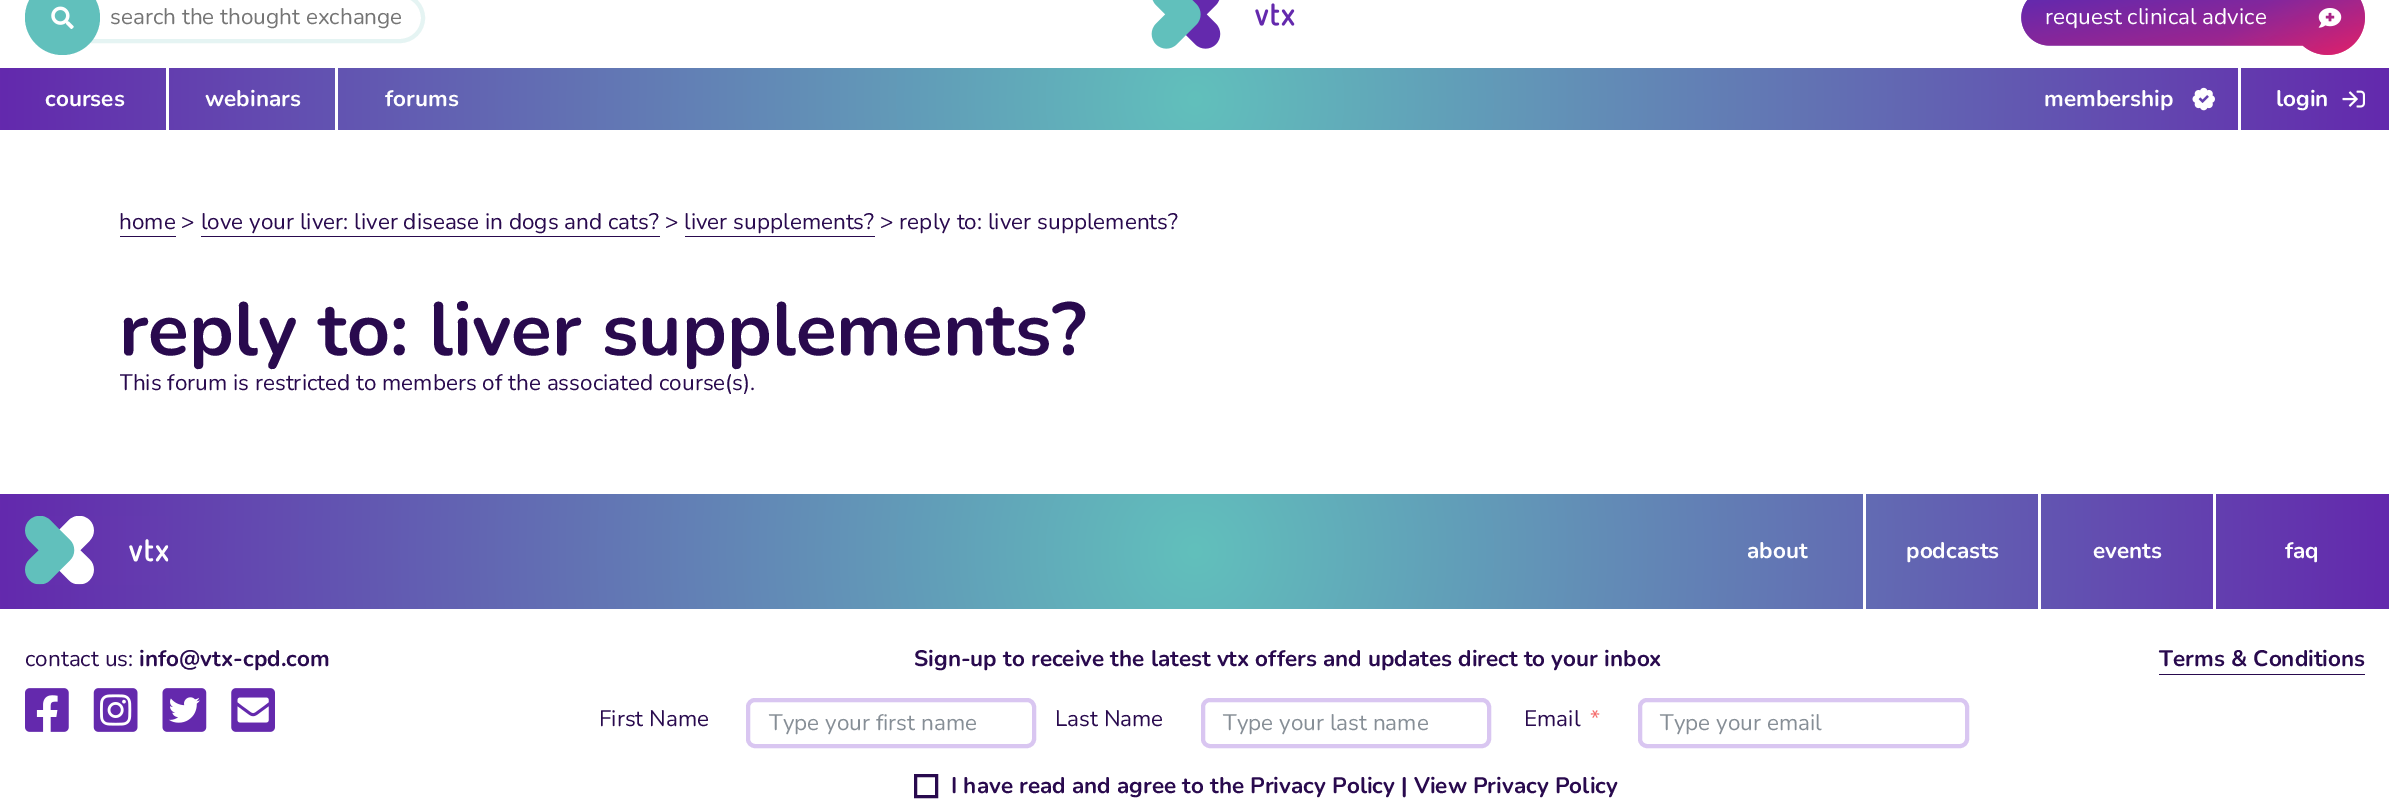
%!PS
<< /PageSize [2389 800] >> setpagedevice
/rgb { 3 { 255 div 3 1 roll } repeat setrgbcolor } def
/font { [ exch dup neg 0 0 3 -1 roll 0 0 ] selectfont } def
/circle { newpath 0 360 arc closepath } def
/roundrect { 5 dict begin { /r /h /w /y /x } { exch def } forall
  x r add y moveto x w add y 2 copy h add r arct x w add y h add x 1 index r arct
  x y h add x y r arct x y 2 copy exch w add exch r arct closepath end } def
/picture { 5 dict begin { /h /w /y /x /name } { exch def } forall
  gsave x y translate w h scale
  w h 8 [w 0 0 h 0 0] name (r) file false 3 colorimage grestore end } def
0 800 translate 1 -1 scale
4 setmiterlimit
255 255 255 rgb
0 0 2389 800 rectfill
229 244 243 rgb
4 setlinewidth
40 -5 383 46 23 roundrect stroke
97 192 188 rgb
62.5 17.5 37.5 circle fill
(img/1.rgb) 51 6 23 23 picture
(img/2.rgb) 1151 0 144 49 picture
(img/3.rgb) 2021 0 344 55 picture
(img/4.rgb) 2318 8 24 20 picture
gsave 0 68 moveto 2389 68 lineto 2389 130 lineto 0 130 lineto closepath clip newpath 1195 99 translate 1195 1195 scale
<< /ShadingType 3 /ColorSpace /DeviceRGB /Coords [0 0 0 0 0 1] /Extend [true true] /Function << /FunctionType 2 /Domain [0 1] /C0 [0.38 0.753 0.737] /C1 [0.392 0.161 0.678] /N 1 >> >> shfill grestore
[
  [166 68 3 62 255 255 255]
  [335 68 3 62 255 255 255]
  [2238 68 3 62 255 255 255]
] { aload pop rgb rectfill } forall
(img/5.rgb) 2192 87 23 24 picture
(img/6.rgb) 2342 90 23 18 picture
[
  [120 236 56 1 41 10 78]
  [201 236 459 1 41 10 78]
  [685 236 190 1 41 10 78]
] { aload pop rgb rectfill } forall
gsave 0 494 moveto 2389 494 lineto 2389 609 lineto 0 609 lineto closepath clip newpath 1195 551 translate 1196 1196 scale
<< /ShadingType 3 /ColorSpace /DeviceRGB /Coords [0 0 0 0 0 1] /Extend [true true] /Function << /FunctionType 2 /Domain [0 1] /C0 [0.38 0.753 0.737] /C1 [0.392 0.161 0.678] /N 1 >> >> shfill grestore
(img/7.rgb) 25 516 144 69 picture
[
  [1863 494 3 115 255 255 255]
  [2038 494 3 115 255 255 255]
  [2213 494 3 115 255 255 255]
] { aload pop rgb rectfill } forall
(img/8.rgb) 25 688 44 44 picture
(img/9.rgb) 93 688 45 44 picture
(img/10.rgb) 162 688 45 44 picture
(img/11.rgb) 231 688 44 44 picture
217 198 241 rgb
748 700 286 46 7 roundrect stroke
1203 700 286 46 7 roundrect stroke
1640 700 327 46 7 roundrect stroke
41 10 78 rgb
3 setlinewidth
915.5 775.5 21 21 rectstroke
2159 674 206 1 rectfill
/Nunito-Regular 22.5 font
117 117 117 rgb
110 24 moveto (search the thought exchange) show
255 255 255 rgb
2045 24 moveto (request clinical advice) show
/Nunito-Bold 22.5 font
[
  [(courses) 45 106]
  [(webinars) 205 106]
  [(forums) 385 106]
  [(membership) 2044 106]
  [(login) 2276 106]
] { aload pop moveto show } forall
/Nunito-Regular 22.5 font
41 10 78 rgb
119 229 moveto (home > love your liver: liver disease in dogs and cats? > liver supplements? > reply to: liver supplements?) show
/Nunito-Bold 75 font
119 355 moveto (reply to: liver supplements?) show
gsave
120 371 2150 23 rectclip
/Nunito-Regular 22.5 font
119 390 moveto (This forum is restricted to members of the associated course\(s\).) show
grestore
/Nunito-Bold 22.5 font
255 255 255 rgb
[
  [(about) 1747 558]
  [(podcasts) 1906 558]
  [(events) 2093 558]
  [(faq) 2285 558]
] { aload pop moveto show } forall
/Nunito-Regular 22.5 font
41 10 78 rgb
25 666 moveto (contact us:) show
/Nunito-Bold 22.5 font
139 666 moveto (info@vtx-cpd.com) show
914 666 moveto (Sign-up to receive the latest vtx offers and updates direct to your inbox) show
/Nunito-Regular 22.5 font
599 726 moveto (First Name) show
134 142 150 rgb
769 730 moveto (Type your first name) show
41 10 78 rgb
1055 726 moveto (Last Name) show
134 142 150 rgb
1223 730 moveto (Type your last name) show
41 10 78 rgb
1524 726 moveto (Email) show
245 108 108 rgb
1590 726 moveto (*) show
134 142 150 rgb
1660 730 moveto (Type your email) show
/Nunito-Bold 22.5 font
41 10 78 rgb
951 793 moveto (I have read and agree to the Privacy Policy | View Privacy Policy) show
2159 666 moveto (Terms & Conditions) show
showpage
